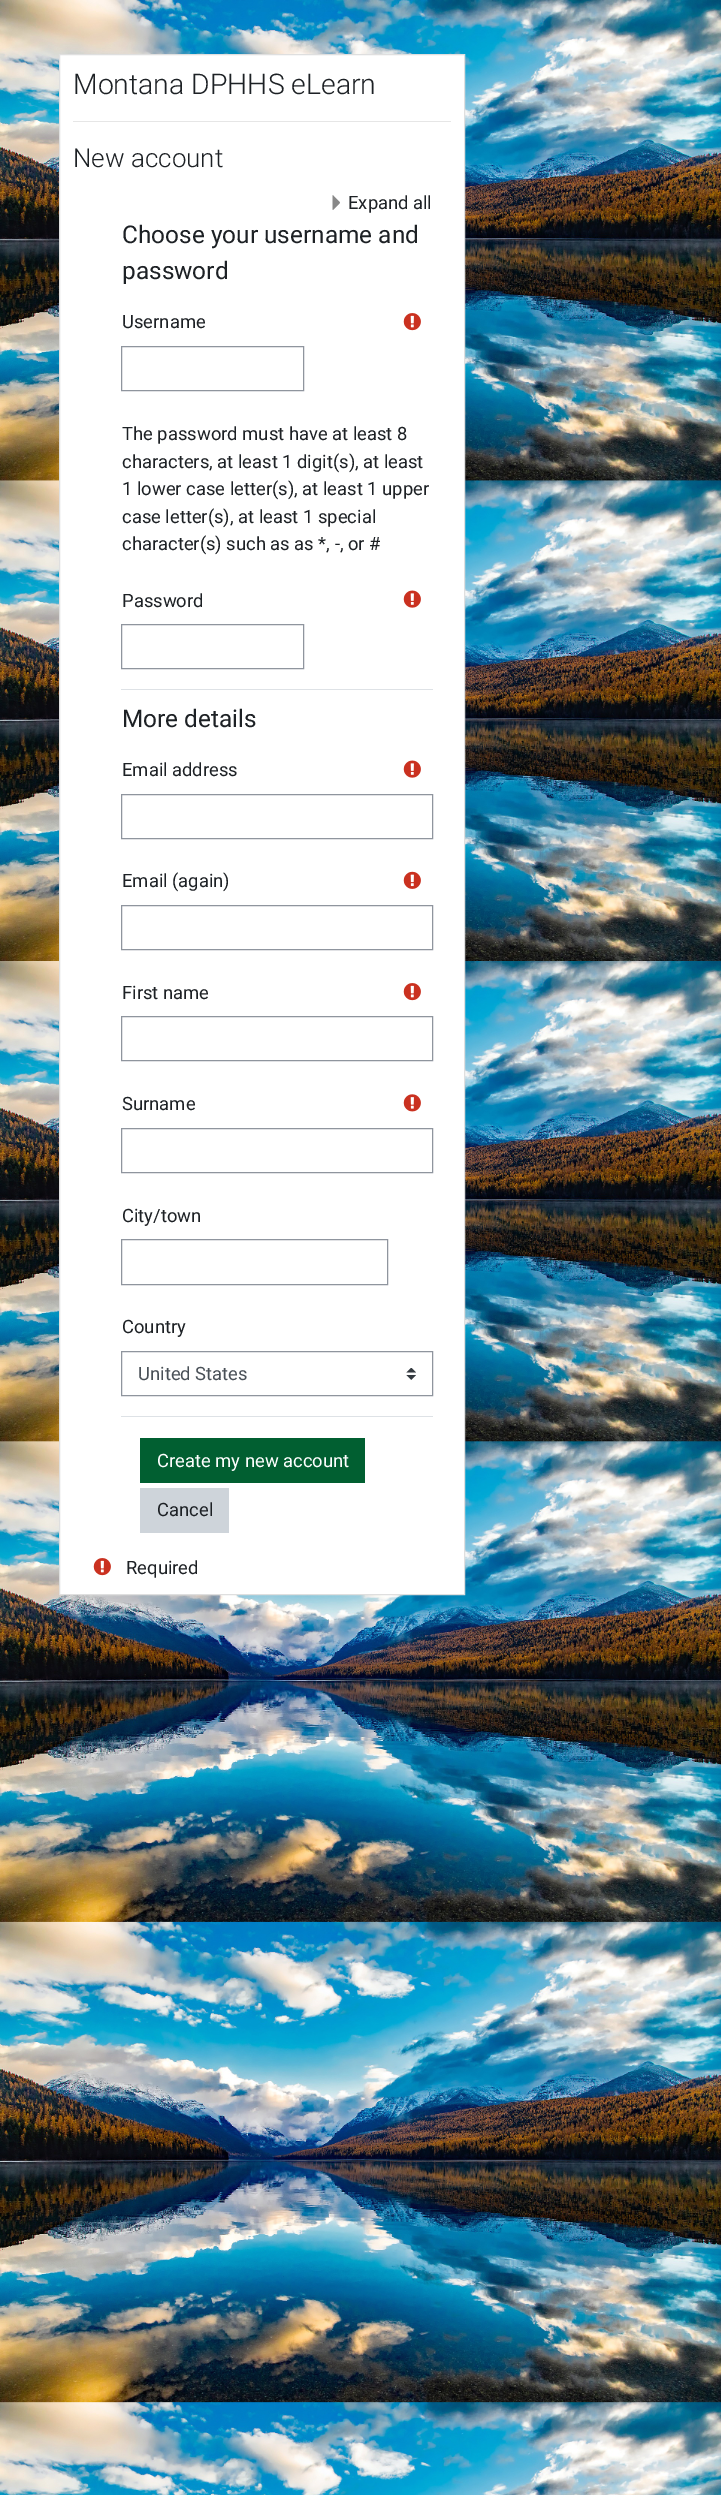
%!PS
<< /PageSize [721 2495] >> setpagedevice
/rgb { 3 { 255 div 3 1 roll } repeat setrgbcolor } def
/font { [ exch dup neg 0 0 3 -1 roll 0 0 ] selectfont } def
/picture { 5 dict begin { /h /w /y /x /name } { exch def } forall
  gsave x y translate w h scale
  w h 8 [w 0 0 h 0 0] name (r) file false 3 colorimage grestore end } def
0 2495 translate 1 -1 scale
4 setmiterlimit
255 255 255 rgb
0 0 721 2495 rectfill
(img/1.rgb) 0 0 721 2495 picture
59.5 54.5 moveto 464.5 54.5 lineto 464.5 1594.5 lineto 59.5 1594.5 lineto closepath gsave fill grestore
223 223 223 rgb
stroke
230 230 230 rgb
73 121 378 1 rectfill
(img/2.rgb) 332 195 8 15 picture
222 226 230 rgb
121 689 312 1 rectfill
(img/3.rgb) 403 313 18 18 picture
143 149 158 rgb
121.5 346.5 182 44 rectstroke
(img/4.rgb) 403 590 18 18 picture
121.5 624.5 182 44 rectstroke
222 226 230 rgb
121 1416 312 1 rectfill
(img/4.rgb) 403 760 18 18 picture
143 149 158 rgb
121.5 794.5 311 44 rectstroke
(img/5.rgb) 403 871 18 18 picture
121.5 905.5 311 44 rectstroke
(img/3.rgb) 403 983 18 18 picture
121.5 1016.5 311 44 rectstroke
(img/6.rgb) 403 1094 18 18 picture
121.5 1128.5 311 44 rectstroke
121.5 1239.5 266 45 rectstroke
(img/7.rgb) 406 1368 10 12 picture
121.5 1351.5 311 44 rectstroke
1 95 49 rgb
140 1438 225 45 rectfill
206 212 218 rgb
140 1488 89 45 rectfill
(img/3.rgb) 93 1558 18 18 picture
/Roboto-Light 28.4 font
29 33 37 rgb
73 94 moveto (Montana DPHHS eLearn) show
/Roboto-Light 26 font
73 167 moveto (New account) show
/Roboto-Regular 18.4 font
348 209 moveto (Expand all) show
/Roboto-Regular 24.4 font
122 243 moveto (Choose your username and) show
122 279 moveto (password) show
/Roboto-Regular 18.4 font
[
  [(Username) 122 328]
  [(The password must have at least 8) 122 440]
  [(characters, at least 1 digit\(s\), at least) 122 468]
  [(1 lower case letter\(s\), at least 1 upper) 122 495]
  [(case letter\(s\), at least 1 special) 122 523]
  [(character\(s\) such as as *, -, or #) 122 550]
  [(Password) 122 607]
] { aload pop moveto show } forall
/Roboto-Regular 24.4 font
122 727 moveto (More details) show
/Roboto-Regular 18.4 font
[
  [(Email address) 122 776]
  [(Email \(again\)) 122 887]
  [(First name) 122 999]
  [(Surname) 122 1110]
  [(City/town) 122 1222]
  [(Country) 122 1333]
] { aload pop moveto show } forall
73 80 87 rgb
138 1380 moveto (United States) show
255 255 255 rgb
157 1467 moveto (Create my new account) show
29 33 37 rgb
157 1516 moveto (Cancel) show
126 1574 moveto (Required) show
showpage
